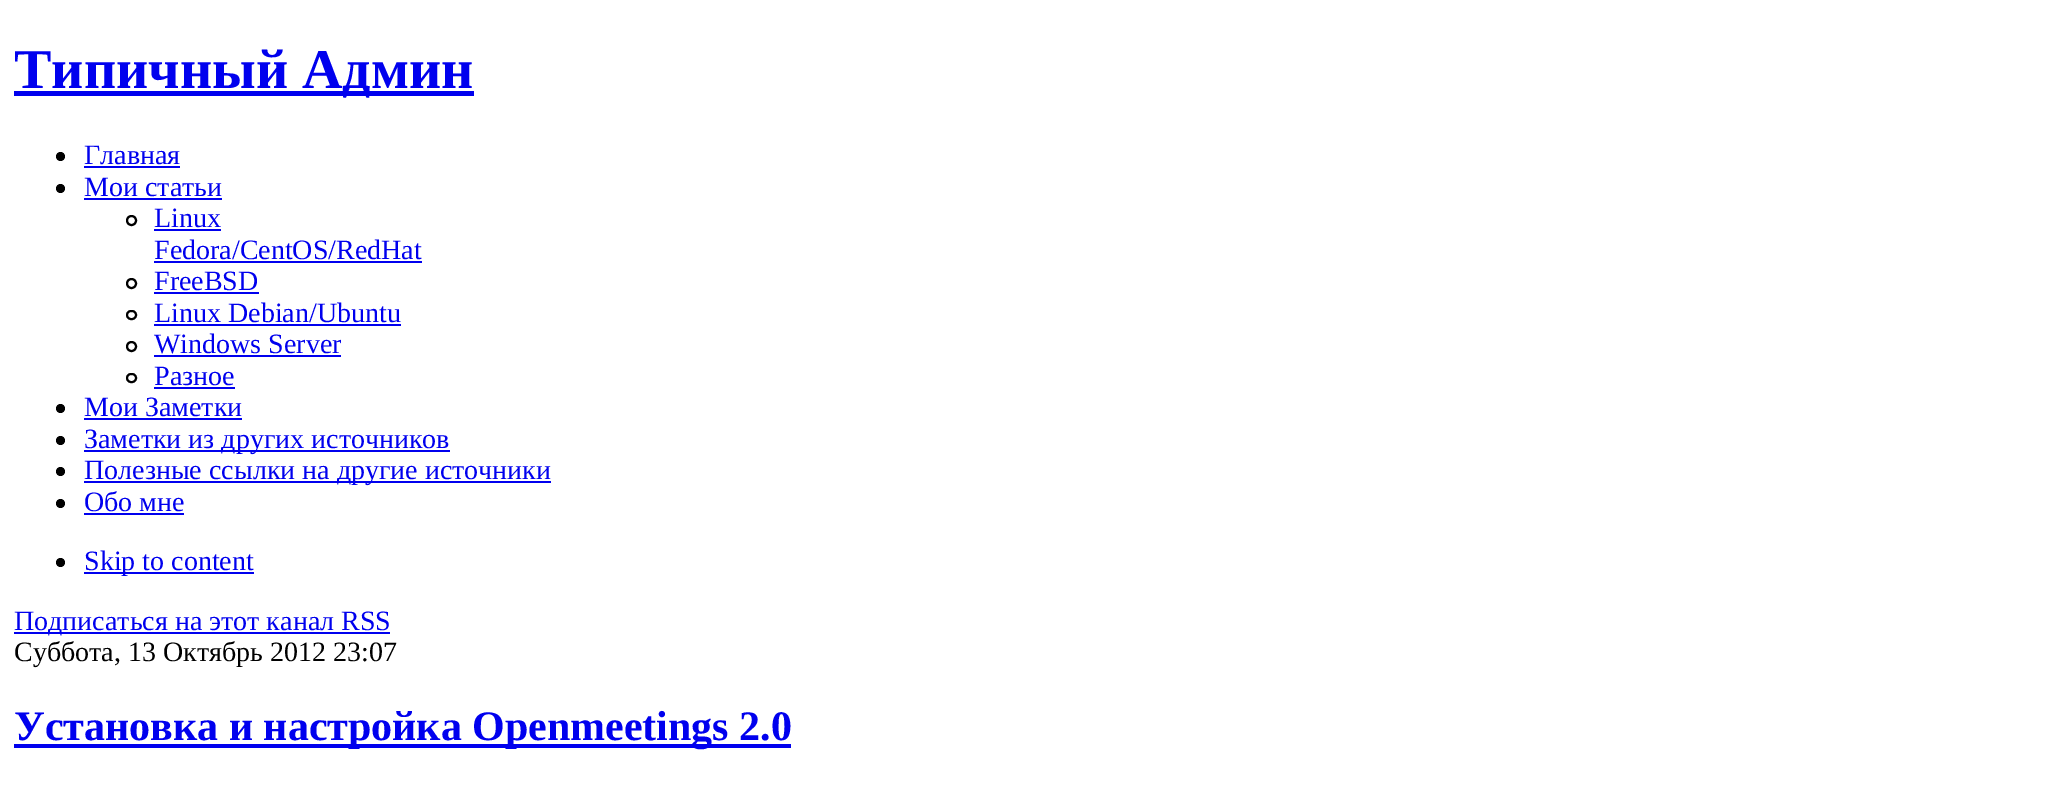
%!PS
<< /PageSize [2059 800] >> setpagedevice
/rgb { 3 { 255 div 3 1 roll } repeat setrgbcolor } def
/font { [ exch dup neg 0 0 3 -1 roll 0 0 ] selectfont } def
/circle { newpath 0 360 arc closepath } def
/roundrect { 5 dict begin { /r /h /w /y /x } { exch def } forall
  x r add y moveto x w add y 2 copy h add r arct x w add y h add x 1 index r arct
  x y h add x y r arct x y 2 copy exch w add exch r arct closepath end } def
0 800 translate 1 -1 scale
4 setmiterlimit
255 255 255 rgb
0 0 2059 800 rectfill
0 0 238 rgb
14 91 460 5 rectfill
0 0 0 rgb
60.5 156.5 4.5 circle fill
0 0 238 rgb
84 166 96 2 rectfill
0 0 0 rgb
60.5 188.5 4.5 circle fill
0 0 238 rgb
84 198 138 2 rectfill
0 0 0 rgb
2 setlinewidth
131.5 220.5 4.5 circle stroke
0 0 238 rgb
154 229 67 2 rectfill
154 261 268 2 rectfill
0 0 0 rgb
131.5 283.5 4.5 circle stroke
0 0 238 rgb
154 292 105 2 rectfill
0 0 0 rgb
127 311 9 8 4 roundrect stroke
0 0 238 rgb
154 324 247 2 rectfill
0 0 0 rgb
131.5 346.5 4.5 circle stroke
0 0 238 rgb
154 355 187 2 rectfill
0 0 0 rgb
127 374 9 8 4 roundrect stroke
0 0 238 rgb
154 387 81 2 rectfill
0 0 0 rgb
60.5 408.5 4.5 circle fill
0 0 238 rgb
84 418 158 2 rectfill
0 0 0 rgb
60.5 440.5 4.5 circle fill
0 0 238 rgb
84 450 366 2 rectfill
0 0 0 rgb
60.5 471.5 4.5 circle fill
0 0 238 rgb
84 481 467 2 rectfill
0 0 0 rgb
60.5 503.5 4.5 circle fill
0 0 238 rgb
84 513 100 2 rectfill
0 0 0 rgb
60.5 562.5 4.5 circle fill
[
  [84 572 170 2 0 0 238]
  [14 632 376 2 0 0 238]
  [14 744 777 4 0 0 238]
] { aload pop rgb rectfill } forall
/LiberationSerif-Bold 56 font
14 88 moveto (Типичный Админ) show
/LiberationSerif-Regular 28 font
[
  [(Главная) 84 164]
  [(Мои статьи) 84 196]
  [(Linux) 154 227]
  [(Fedora/CentOS/RedHat) 154 259]
  [(FreeBSD) 154 290]
  [(Linux Debian/Ubuntu) 154 322]
  [(Windows Server) 154 353]
  [(Разное) 154 385]
  [(Мои Заметки) 84 416]
  [(Заметки из других источников) 84 448]
  [(Полезные ссылки на другие источники) 84 479]
  [(Обо мне) 84 511]
  [(Skip to content) 84 570]
  [(Подписаться на этот канал RSS) 14 630]
] { aload pop moveto show } forall
0 0 0 rgb
14 661 moveto (Суббота, 13 Октябрь 2012 23:07) show
/LiberationSerif-Bold 42 font
0 0 238 rgb
14 740 moveto (Установка и настройка Openmeetings 2.0) show
showpage
